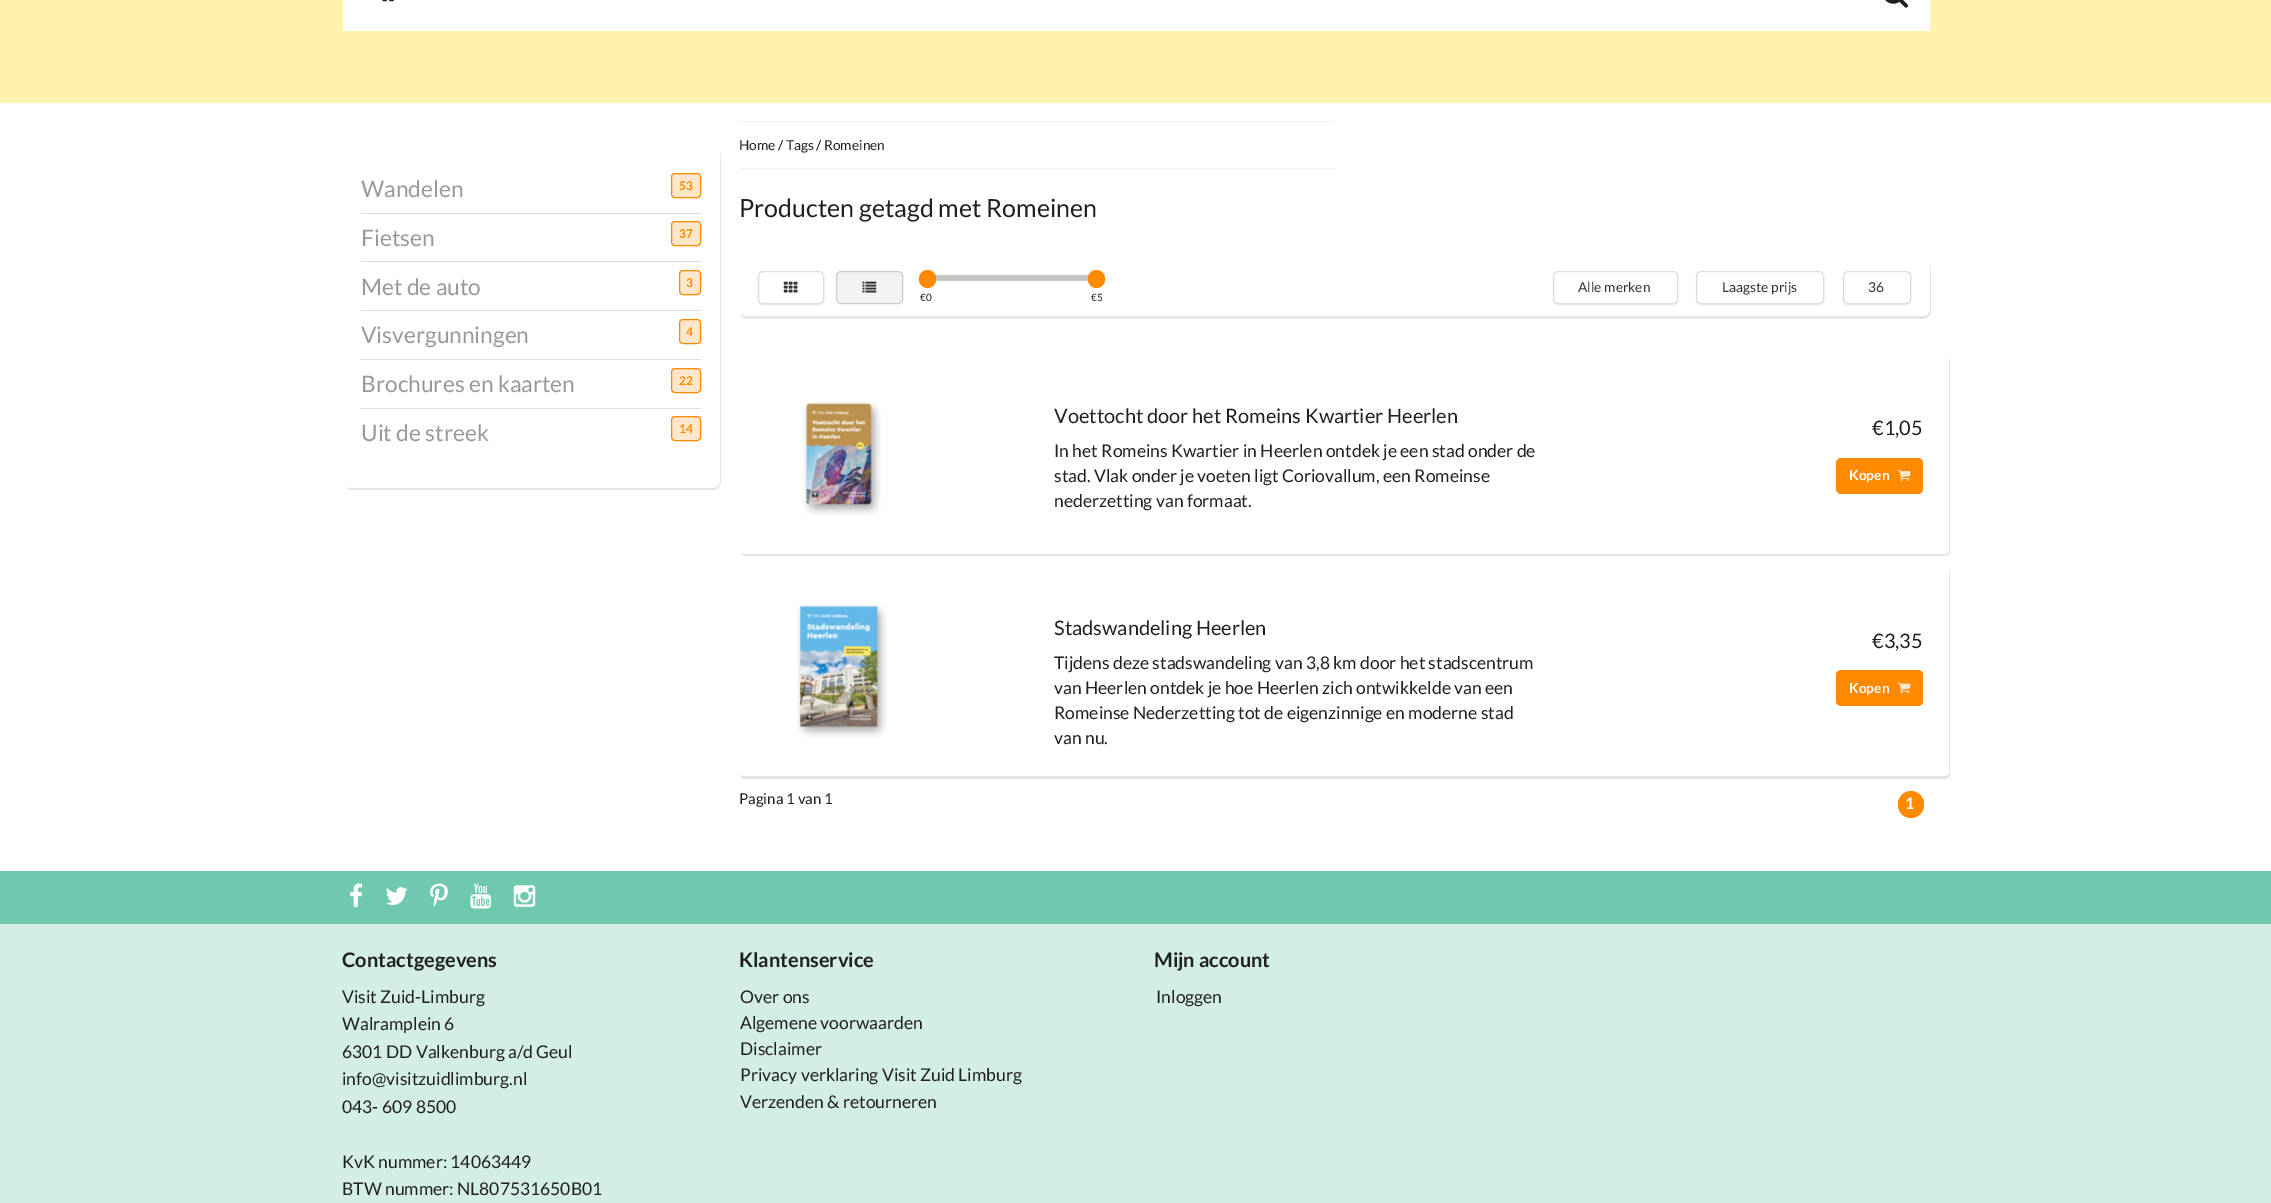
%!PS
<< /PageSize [2271 1203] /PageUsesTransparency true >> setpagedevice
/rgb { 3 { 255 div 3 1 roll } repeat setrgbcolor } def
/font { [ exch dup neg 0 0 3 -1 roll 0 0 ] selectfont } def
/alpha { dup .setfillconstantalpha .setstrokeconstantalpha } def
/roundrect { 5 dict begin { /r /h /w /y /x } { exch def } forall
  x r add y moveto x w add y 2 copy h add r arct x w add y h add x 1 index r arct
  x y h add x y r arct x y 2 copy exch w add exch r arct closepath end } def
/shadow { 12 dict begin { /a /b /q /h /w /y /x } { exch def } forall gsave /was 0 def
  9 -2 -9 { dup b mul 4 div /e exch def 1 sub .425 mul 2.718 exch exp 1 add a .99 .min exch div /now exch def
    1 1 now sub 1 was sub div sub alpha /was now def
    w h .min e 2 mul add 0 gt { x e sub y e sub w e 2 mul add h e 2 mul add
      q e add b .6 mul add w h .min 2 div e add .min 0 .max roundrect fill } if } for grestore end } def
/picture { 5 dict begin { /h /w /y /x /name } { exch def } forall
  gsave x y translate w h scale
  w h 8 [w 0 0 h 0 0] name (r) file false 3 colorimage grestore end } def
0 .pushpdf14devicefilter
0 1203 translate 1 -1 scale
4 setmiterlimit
255 255 255 rgb
0 0 2271 1203 rectfill
255 243 174 rgb
0 0 2271 103 rectfill
255 255 255 rgb
343 0 1587 31 rectfill
(img/1.rgb) 382 0 12 2 picture
(img/2.rgb) 1885 0 23 8 picture
229 229 229 rgb
345 485 moveto 346 488 349 490 352 490 curveto 713 490 lineto 717 490 721 486 721 482 curveto 721 157 lineto 721 156 721 154 720 153 curveto 720 480 lineto 720 484 717 488 712 488 curveto 350 488 lineto 348 488 346 487 345 485 curveto closepath fill
255 255 255 rgb
343 146 377 342 8 roundrect fill
255 231 204 rgb
671.5 173.5 29 24 3.5 roundrect gsave fill grestore
255 138 0 rgb
stroke
221 221 221 rgb
361 213 340 1 rectfill
255 231 204 rgb
671.5 221.5 29 24 3.5 roundrect gsave fill grestore
255 138 0 rgb
stroke
221 221 221 rgb
361 261 340 1 rectfill
255 231 204 rgb
679.5 270.5 21 24 3.5 roundrect gsave fill grestore
255 138 0 rgb
stroke
221 221 221 rgb
361 310 340 1 rectfill
255 231 204 rgb
679.5 319.5 21 24 3.5 roundrect gsave fill grestore
255 138 0 rgb
stroke
221 221 221 rgb
361 359 340 1 rectfill
255 231 204 rgb
671.5 368.5 29 24 3.5 roundrect gsave fill grestore
255 138 0 rgb
stroke
221 221 221 rgb
361 408 340 1 rectfill
255 231 204 rgb
671.5 416.5 29 24 3.5 roundrect gsave fill grestore
255 138 0 rgb
stroke
242 242 242 rgb
739 121 595 1 rectfill
739 168 595 1 rectfill
229 229 229 rgb
740 313 moveto 741 317 744 319 748 319 curveto 1923 319 lineto 1927 319 1931 315 1931 311 curveto 1931 269 lineto 1931 268 1931 266 1930 265 curveto 1930 302 lineto 1930 307 1931 316 1922 316 curveto 746 316 lineto 744 316 742 315 740 313 curveto closepath fill
255 255 255 rgb
739 259 1191 57 8 roundrect fill
34 25 25 rgb
1553 273 125 32 5 0.5 0.1 shadow
255 255 255 rgb
1553.5 271.5 124 32 4.5 roundrect gsave fill grestore
221 221 221 rgb
stroke
34 25 25 rgb
1696 273 128 32 5 0.5 0.1 shadow
255 255 255 rgb
1696.5 271.5 127 32 4.5 roundrect gsave fill grestore
221 221 221 rgb
stroke
34 25 25 rgb
1843 273 68 32 5 0.5 0.1 shadow
255 255 255 rgb
1843.5 271.5 67 32 4.5 roundrect gsave fill grestore
221 221 221 rgb
stroke
34 25 25 rgb
758 273 66 32 5 0.5 0.1 shadow
255 255 255 rgb
758.5 271.5 65 32 4.5 roundrect gsave fill grestore
221 221 221 rgb
stroke
(img/3.rgb) 783 281 15 12 picture
242 242 242 rgb
836.5 271.5 66 32 4.5 roundrect gsave fill grestore
204 204 204 rgb
stroke
(img/4.rgb) 862 281 15 12 picture
198 198 198 rgb
935 275 158 6 rectfill
255 138 0 rgb
919 270 17 18 8.5 roundrect fill
1088 270 17 18 8.5 roundrect fill
229 229 229 rgb
740 552 moveto 741 554 743 556 745 556 curveto 1945 556 lineto 1948 556 1950 554 1950 551 curveto 1950 361 lineto 1950 360 1949 358 1949 358 curveto 1949 549 lineto 1949 552 1947 554 1944 554 curveto 744 554 lineto 742 554 741 553 740 552 curveto closepath fill
255 255 255 rgb
739 354 1210 200 5 roundrect fill
(img/5.rgb) 803 401 78 114 picture
255 138 0 rgb
1836 458 87 36 5 roundrect fill
(img/6.rgb) 1897 470 14 11 picture
229 229 229 rgb
740 775 moveto 740 777 742 779 745 779 curveto 1945 779 lineto 1948 779 1950 777 1950 774 curveto 1950 574 lineto 1950 573 1950 572 1949 571 curveto 1949 771 lineto 1949 774 1947 776 1944 776 curveto 744 776 lineto 742 776 741 776 740 775 curveto closepath fill
255 255 255 rgb
739 566 1210 210 5 roundrect fill
(img/7.rgb) 797 604 90 134 picture
255 138 0 rgb
1836 670 87 36 5 roundrect fill
(img/8.rgb) 1897 682 14 12 picture
1898 791 26 27 13 roundrect fill
111 201 175 rgb
0 871 2271 53 rectfill
(img/9.rgb) 350 883 13 24 picture
(img/10.rgb) 385 887 23 18 picture
(img/11.rgb) 430 883 18 24 picture
(img/12.rgb) 470 883 22 26 picture
(img/13.rgb) 513 885 23 22 picture
211 238 230 rgb
0 924 2271 279 rectfill
/Lato-Regular 22.75 font
153 153 153 rgb
361 197 moveto (Wandelen) show
/Lato-Bold 12 font
255 138 0 rgb
679 190 moveto (53) show
/Lato-Regular 22.75 font
153 153 153 rgb
361 246 moveto (Fietsen) show
/Lato-Bold 12 font
255 138 0 rgb
679 238 moveto (37) show
/Lato-Regular 22.75 font
153 153 153 rgb
361 295 moveto (Met de auto) show
/Lato-Bold 12 font
255 138 0 rgb
686 287 moveto (3) show
/Lato-Regular 22.75 font
153 153 153 rgb
361 343 moveto (Visvergunningen) show
/Lato-Bold 12 font
255 138 0 rgb
686 336 moveto (4) show
/Lato-Regular 22.75 font
153 153 153 rgb
361 392 moveto (Brochures en kaarten) show
/Lato-Bold 12 font
255 138 0 rgb
679 385 moveto (22) show
/Lato-Regular 22.75 font
153 153 153 rgb
361 441 moveto (Uit de streek) show
/Lato-Bold 12 font
255 138 0 rgb
679 433 moveto (14) show
/Lato-Regular 13.75 font
32 32 32 rgb
739 150 moveto (Home) show
0 0 0 rgb
778 150 moveto (/) show
32 32 32 rgb
786 150 moveto (Tags) show
0 0 0 rgb
816 150 moveto (/) show
32 32 32 rgb
824 150 moveto (Romeinen) show
/Lato-Regular 25 font
739 217 moveto (Producten getagd met Romeinen) show
/Lato-Regular 13.75 font
51 51 51 rgb
[
  [(Alle merken) 1578 292]
  [(Laagste prijs) 1722 292]
  [(36) 1868 292]
] { aload pop moveto show } forall
/Lato-Regular 10 font
32 32 32 rgb
920 301 moveto (€0) show
1091 301 moveto (€5) show
/Lato-Regular 20 font
1054 423 moveto (Voettocht door het Romeins Kwartier Heerlen) show
/Lato-Regular 17.5 font
[
  [(In het Romeins Kwartier in Heerlen ontdek je een stad onder de) 1054 457]
  [(stad. Vlak onder je voeten ligt Coriovallum, een Romeinse) 1054 482]
  [(nederzetting van formaat.) 1054 507]
] { aload pop moveto show } forall
/Lato-Regular 20 font
1872 435 moveto (€1,05) show
/Lato-Bold 13.75 font
255 255 255 rgb
1849 480 moveto (Kopen) show
/Lato-Regular 20 font
32 32 32 rgb
1054 635 moveto (Stadswandeling Heerlen) show
/Lato-Regular 17.5 font
[
  [(Tijdens deze stadswandeling van 3,8 km door het stadscentrum) 1054 669]
  [(van Heerlen ontdek je hoe Heerlen zich ontwikkelde van een) 1054 694]
  [(Romeinse Nederzetting tot de eigenzinnige en moderne stad) 1054 719]
  [(van nu.) 1054 744]
] { aload pop moveto show } forall
/Lato-Regular 20 font
1872 648 moveto (€3,35) show
/Lato-Bold 13.75 font
255 255 255 rgb
1849 693 moveto (Kopen) show
/Lato-Regular 15 font
32 32 32 rgb
739 804 moveto (Pagina 1 van 1) show
/Lato-Bold 16 font
255 255 255 rgb
1905 809 moveto (1) show
/Lato-Bold 20 font
32 32 32 rgb
342 967 moveto (Contactgegevens) show
/Lato-Regular 17.5 font
[
  [(Visit Zuid-Limburg) 342 1003]
  [(Walramplein 6) 342 1030]
  [(6301 DD Valkenburg a/d Geul) 342 1058]
  [(info@visitzuidlimburg.nl) 342 1085]
  [(043- 609 8500) 342 1113]
  [(KvK nummer: 14063449) 342 1168]
  [(BTW nummer: NL807531650B01) 342 1195]
] { aload pop moveto show } forall
/Lato-Bold 20 font
739 967 moveto (Klantenservice) show
/Lato-Regular 17.5 font
[
  [(Over ons) 740 1003]
  [(Algemene voorwaarden) 740 1029]
  [(Disclaimer) 740 1055]
  [(Privacy verklaring Visit Zuid Limburg) 740 1081]
  [(Verzenden & retourneren) 740 1108]
] { aload pop moveto show } forall
/Lato-Bold 20 font
1154 967 moveto (Mijn account) show
/Lato-Regular 17.5 font
1156 1003 moveto (Inloggen) show
.poppdf14devicefilter showpage
